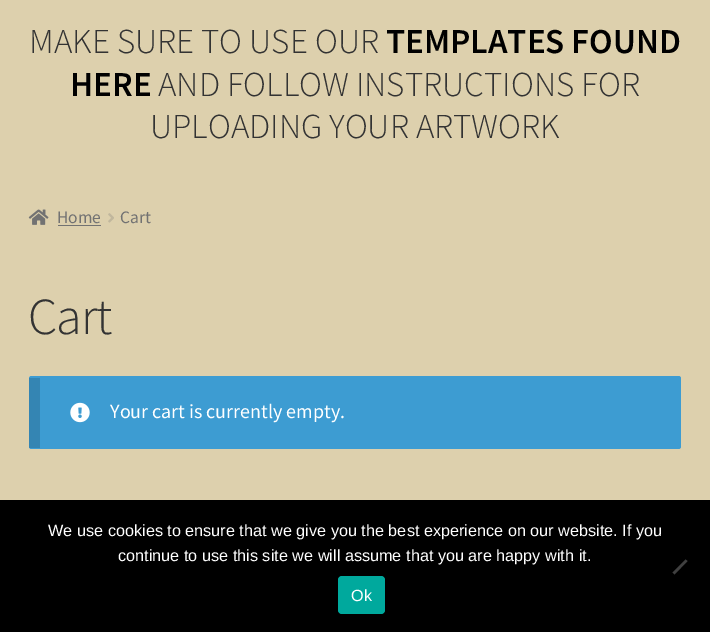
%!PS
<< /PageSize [710 632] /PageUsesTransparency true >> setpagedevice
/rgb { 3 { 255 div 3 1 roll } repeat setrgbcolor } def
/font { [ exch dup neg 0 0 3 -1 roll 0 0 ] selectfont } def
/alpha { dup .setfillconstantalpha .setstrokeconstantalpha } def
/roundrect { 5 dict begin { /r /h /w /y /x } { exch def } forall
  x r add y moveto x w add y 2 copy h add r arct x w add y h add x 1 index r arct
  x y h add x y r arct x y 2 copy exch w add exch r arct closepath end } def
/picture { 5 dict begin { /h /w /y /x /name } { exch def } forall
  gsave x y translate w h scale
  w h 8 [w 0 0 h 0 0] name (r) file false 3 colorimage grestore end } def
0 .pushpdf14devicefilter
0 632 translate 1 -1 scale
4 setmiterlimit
221 208 173 rgb
0 0 710 632 rectfill
(img/1.rgb) 28 209 21 16 picture
114 114 114 rgb
58 225 43 1 rectfill
(img/2.rgb) 108 213 6 10 picture
61 156 210 rgb
29 376 652 73 2.5 roundrect fill
0.15 alpha
0 0 0 rgb
29 378 11 70 rectfill
1 alpha
(img/3.rgb) 70 402 20 21 picture
0 500 710 132 rectfill
64 64 64 rgb
685.5 559.5 moveto 687.5 561 lineto 674.5 574.5 lineto 672.5 572.5 lineto closepath fill
0 169 157 rgb
338 576 47 38 4 roundrect fill
/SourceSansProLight-Light 35 font
51 51 51 rgb
29 53 moveto (MAKE SURE TO USE OUR) show
/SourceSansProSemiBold-SemiBold 35 font
0 0 0 rgb
386 53 moveto (TEMPLATES FOUND) show
70 96 moveto (HERE) show
/SourceSansProLight-Light 35 font
51 51 51 rgb
158 96 moveto (AND FOLLOW INSTRUCTIONS FOR) show
150 138 moveto (UPLOADING YOUR ARTWORK) show
/SourceSansPro-Regular 17.5 font
114 114 114 rgb
57 223 moveto (Home) show
120 223 moveto (Cart) show
/SourceSansProLight-Light 52 font
51 51 51 rgb
28 334 moveto -1 0 (Cart) ashow
/SourceSansPro-Regular 20 font
255 255 255 rgb
110 418 moveto (Your cart is currently empty.) show
/LiberationSans-Regular 16.25 font
[
  [(We use cookies to ensure that we give you the best experience on our website. If you) 48 536]
  [(continue to use this site we will assume that you are happy with it.) 118 561]
  [(Ok) 351 601]
] { aload pop moveto show } forall
.poppdf14devicefilter showpage
